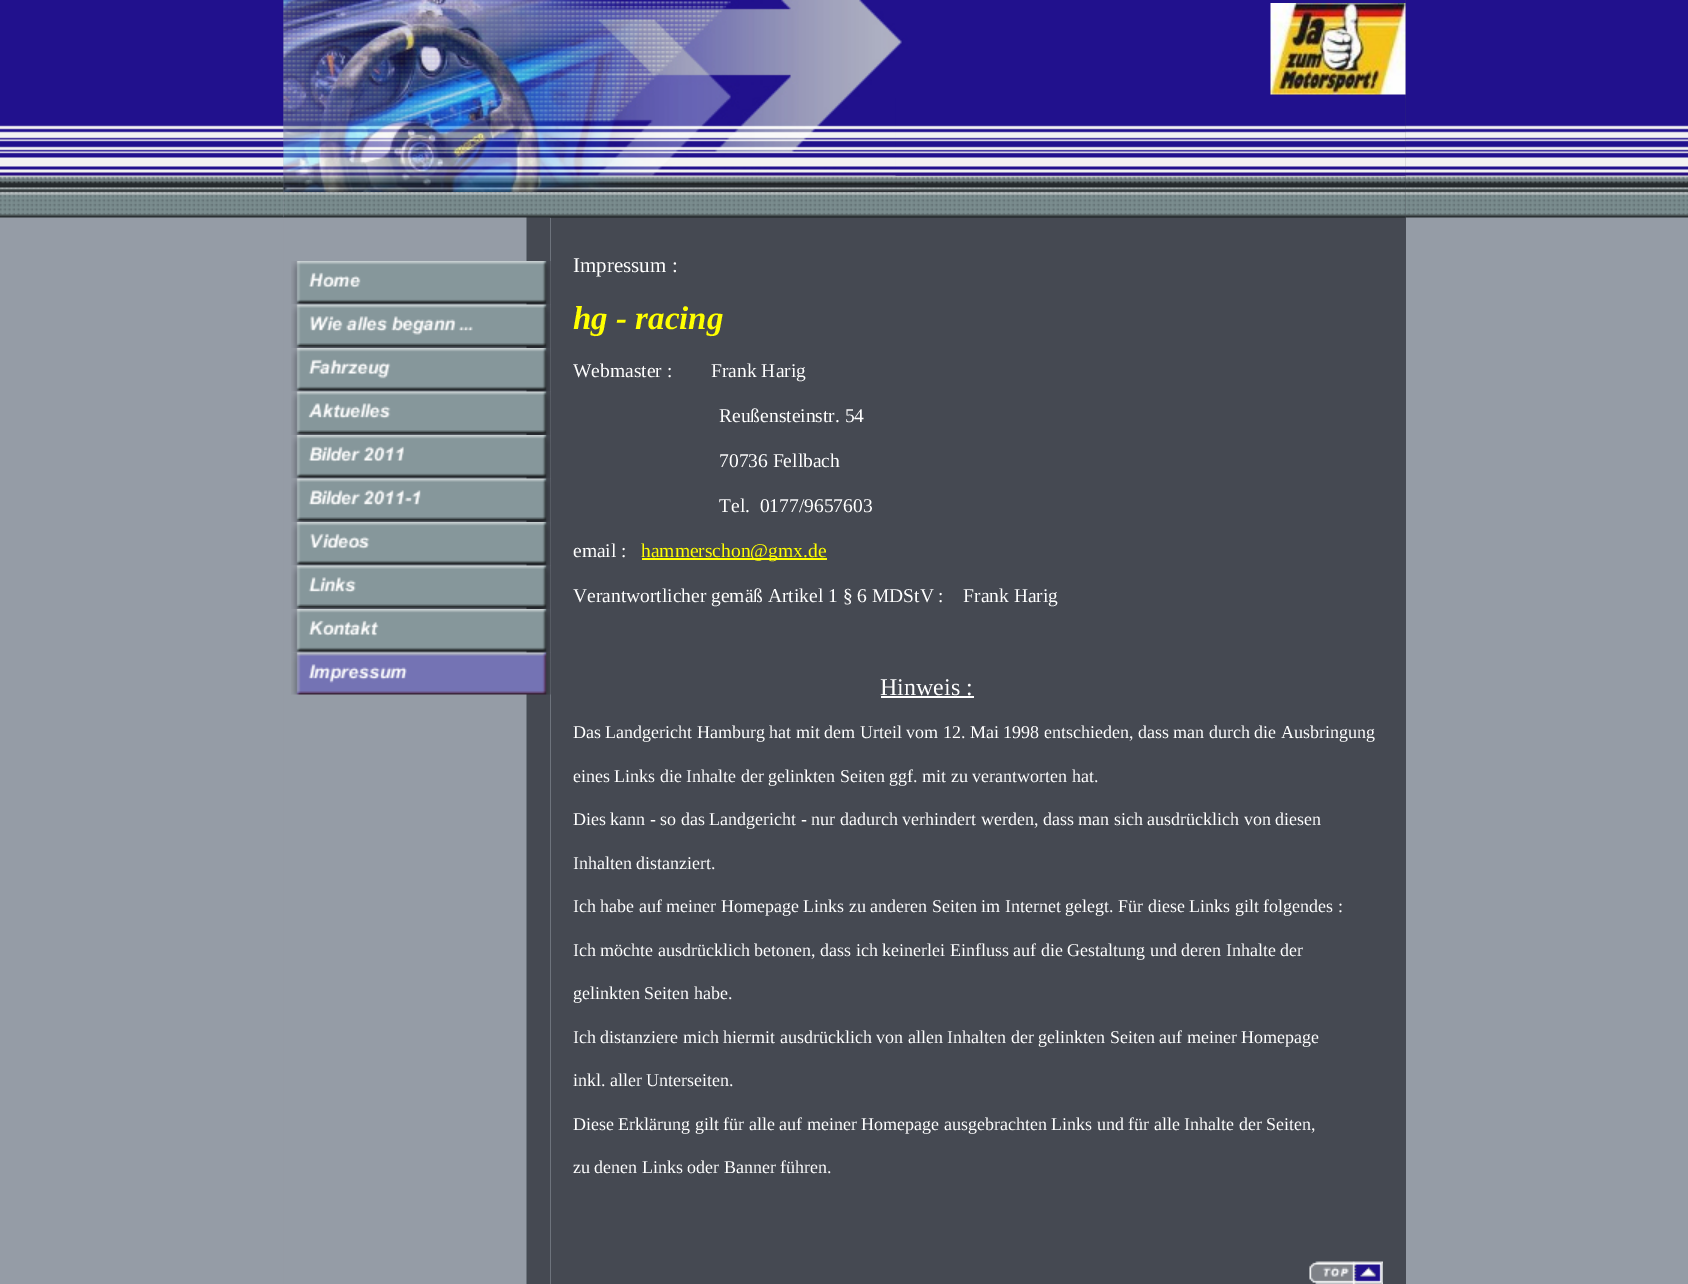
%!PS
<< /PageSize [1688 1284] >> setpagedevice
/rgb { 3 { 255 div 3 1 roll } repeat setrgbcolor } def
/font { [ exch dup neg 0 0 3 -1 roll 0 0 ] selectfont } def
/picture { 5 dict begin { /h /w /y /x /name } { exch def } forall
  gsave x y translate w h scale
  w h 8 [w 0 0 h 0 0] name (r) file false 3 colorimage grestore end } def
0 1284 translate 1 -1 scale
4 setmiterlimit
149 156 166 rgb
0 0 1688 1284 rectfill
(img/1.rgb) 0 0 1688 218 picture
550 217 1 1 rectfill
(img/2.rgb) 283 0 268 218 picture
(img/5.rgb) 283 0 268 1284 picture
69 73 82 rgb
551 0 855 1284 rectfill
(img/16.rgb) 550 0 856 218 picture
(img/3.rgb) 283 0 1123 218 picture
(img/4.rgb) 283 0 632 192 picture
(img/6.rgb) 291 261 260 44 picture
(img/7.rgb) 291 304 260 44 picture
(img/8.rgb) 291 348 260 44 picture
(img/9.rgb) 291 391 260 44 picture
(img/10.rgb) 291 435 260 44 picture
(img/11.rgb) 291 478 260 44 picture
(img/12.rgb) 291 522 260 44 picture
(img/13.rgb) 291 565 260 44 picture
(img/14.rgb) 291 609 260 44 picture
(img/15.rgb) 291 652 260 43 picture
(img/17.rgb) 1270 3 136 92 picture
(img/18.rgb) 895 98 511 78 picture
255 255 0 rgb
642 558 185 2 rectfill
255 255 255 rgb
881 696 93 2 rectfill
(img/19.rgb) 1309 1261 74 23 picture
/LiberationSerif-Regular 21 font
573 272 moveto (Impressum :) show
/LiberationSerif-BoldItalic 33 font
255 255 0 rgb
573 329 moveto (hg - racing) show
/LiberationSerif-Regular 19.5 font
255 255 255 rgb
[
  [(Webmaster :        Frank Harig) 573 377]
  [(Reußensteinstr. 54) 719 422]
  [(70736 Fellbach) 719 467]
  [(Tel.  0177/9657603) 719 512]
  [(email :) 573 557]
] { aload pop moveto show } forall
255 255 0 rgb
641 557 moveto (hammerschon@gmx.de) show
255 255 255 rgb
573 602 moveto (Verantwortlicher gemäß Artikel 1 § 6 MDStV :    Frank Harig) show
/LiberationSerif-Regular 24 font
880 695 moveto (Hinweis :) show
/LiberationSerif-Regular 18 font
[
  [(Das Landgericht Hamburg hat mit dem Urteil vom 12. Mai 1998 entschieden, dass man durch die Ausbringung) 573 738]
  [(eines Links die Inhalte der gelinkten Seiten ggf. mit zu verantworten hat.) 573 782]
  [(Dies kann - so das Landgericht - nur dadurch verhindert werden, dass man sich ausdrücklich von diesen) 573 825]
  [(Inhalten distanziert.) 573 869]
  [(Ich habe auf meiner Homepage Links zu anderen Seiten im Internet gelegt. Für diese Links gilt folgendes :) 573 912]
  [(Ich möchte ausdrücklich betonen, dass ich keinerlei Einfluss auf die Gestaltung und deren Inhalte der) 573 956]
  [(gelinkten Seiten habe.) 573 999]
  [(Ich distanziere mich hiermit ausdrücklich von allen Inhalten der gelinkten Seiten auf meiner Homepage) 573 1043]
  [(inkl. aller Unterseiten.) 573 1086]
  [(Diese Erklärung gilt für alle auf meiner Homepage ausgebrachten Links und für alle Inhalte der Seiten,) 573 1130]
  [(zu denen Links oder Banner führen.) 573 1173]
] { aload pop moveto show } forall
showpage
